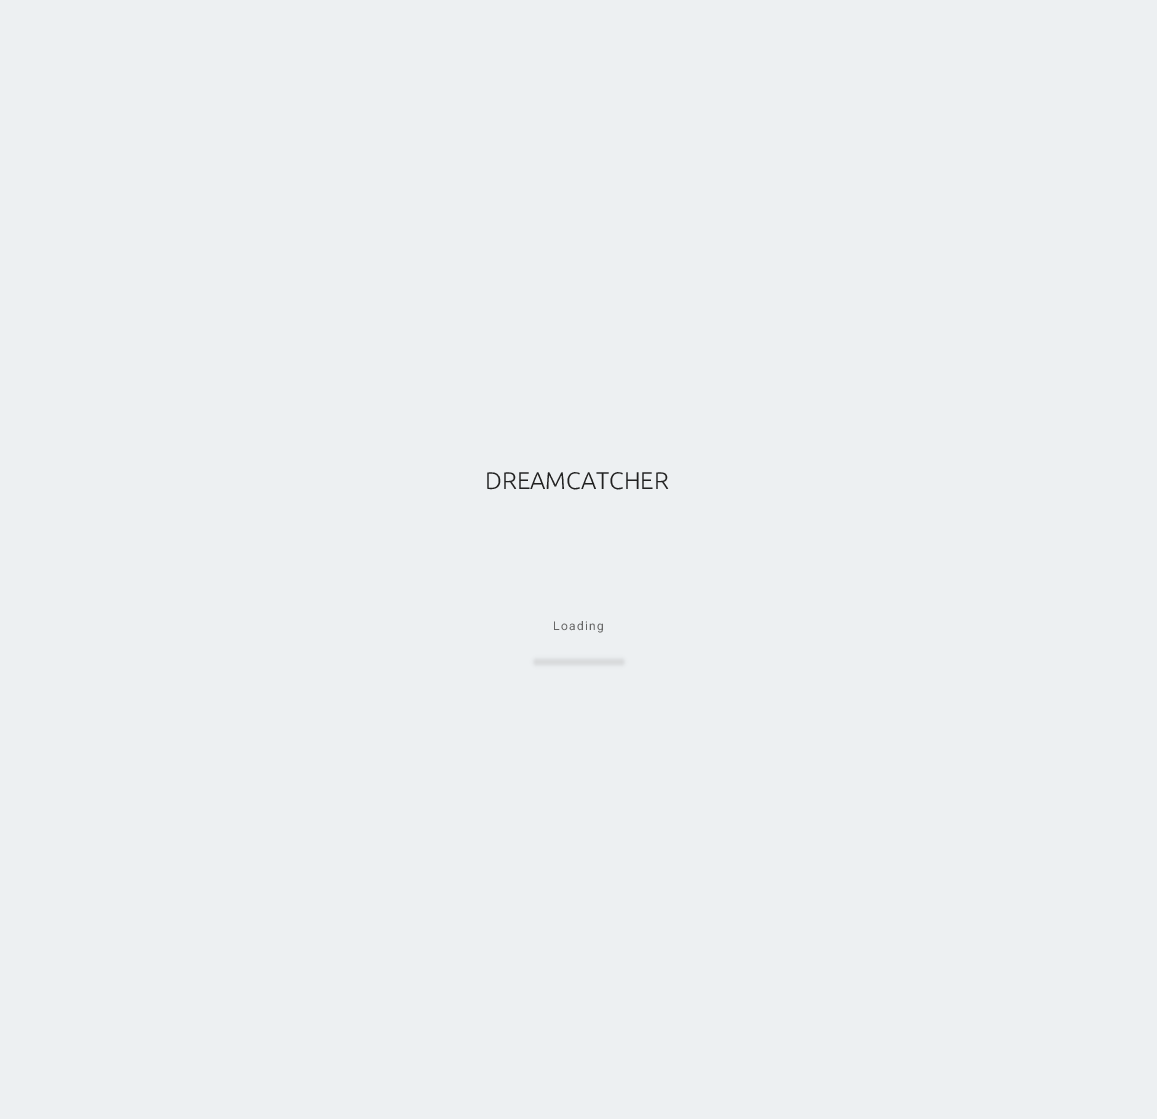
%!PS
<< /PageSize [1157 1119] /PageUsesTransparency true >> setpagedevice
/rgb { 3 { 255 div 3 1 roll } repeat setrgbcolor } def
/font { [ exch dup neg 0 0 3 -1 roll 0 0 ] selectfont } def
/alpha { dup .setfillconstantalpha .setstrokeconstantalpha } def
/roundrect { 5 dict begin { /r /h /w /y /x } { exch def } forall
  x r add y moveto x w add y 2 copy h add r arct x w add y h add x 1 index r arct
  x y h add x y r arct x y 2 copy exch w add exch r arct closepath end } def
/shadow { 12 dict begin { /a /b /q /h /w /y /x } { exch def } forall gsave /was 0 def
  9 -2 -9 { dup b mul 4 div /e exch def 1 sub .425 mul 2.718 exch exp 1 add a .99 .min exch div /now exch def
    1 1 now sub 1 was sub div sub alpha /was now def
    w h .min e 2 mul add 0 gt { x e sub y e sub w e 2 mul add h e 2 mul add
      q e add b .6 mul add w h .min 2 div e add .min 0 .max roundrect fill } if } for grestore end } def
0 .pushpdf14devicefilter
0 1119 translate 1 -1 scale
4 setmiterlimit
237 240 242 rgb
0 0 1157 1119 rectfill
0 0 0 rgb
534 659 90 6 3 2 0.1 shadow
/Ubuntu-Light 24 font
33 33 33 rgb
485 489 moveto (DREAMCATCHER) show
/Roboto-Regular 12 font
102 102 102 rgb
553 630 moveto 1.25 0 (Loading) ashow
.poppdf14devicefilter showpage
